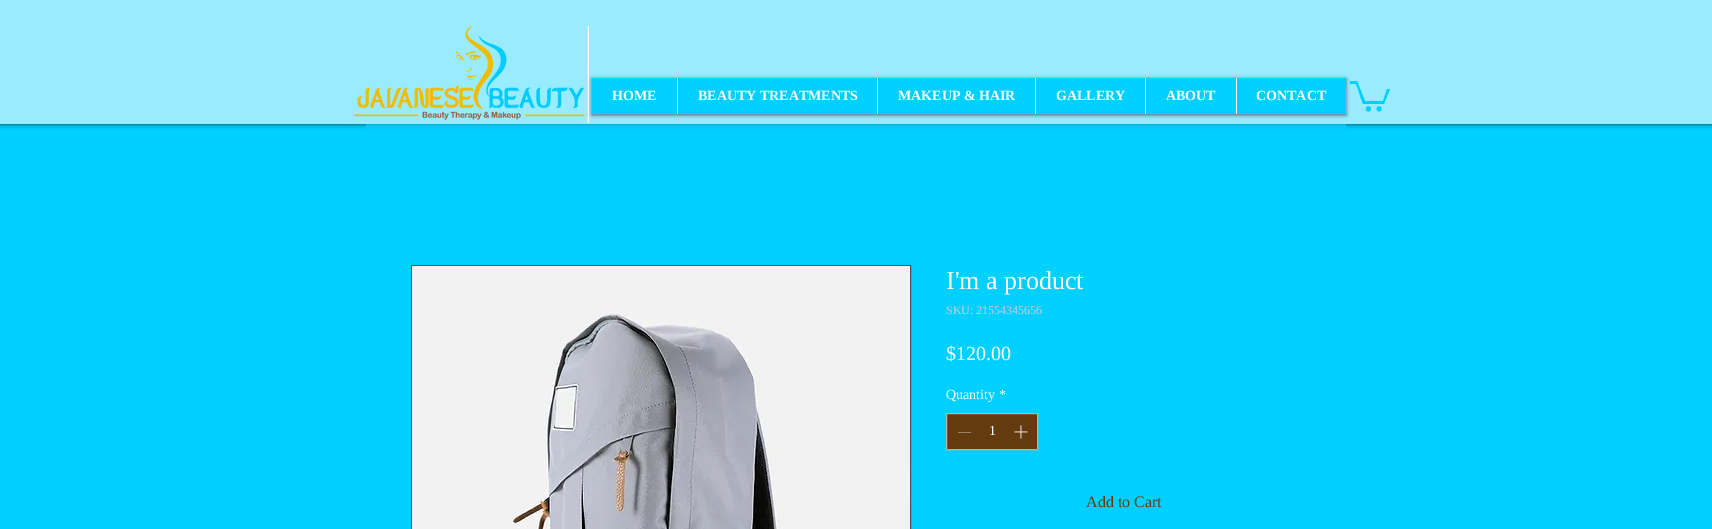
%!PS
<< /PageSize [1712 529] /PageUsesTransparency true >> setpagedevice
/rgb { 3 { 255 div 3 1 roll } repeat setrgbcolor } def
/font { [ exch dup neg 0 0 3 -1 roll 0 0 ] selectfont } def
/alpha { dup .setfillconstantalpha .setstrokeconstantalpha } def
/circle { newpath 0 360 arc closepath } def
/roundrect { 5 dict begin { /r /h /w /y /x } { exch def } forall
  x r add y moveto x w add y 2 copy h add r arct x w add y h add x 1 index r arct
  x y h add x y r arct x y 2 copy exch w add exch r arct closepath end } def
/shadow { 12 dict begin { /a /b /q /h /w /y /x } { exch def } forall gsave /was 0 def
  9 -2 -9 { dup b mul 4 div /e exch def 1 sub .425 mul 2.718 exch exp 1 add a .99 .min exch div /now exch def
    1 1 now sub 1 was sub div sub alpha /was now def
    w h .min e 2 mul add 0 gt { x e sub y e sub w e 2 mul add h e 2 mul add
      q e add b .6 mul add w h .min 2 div e add .min 0 .max roundrect fill } if } for grestore end } def
/picture { 5 dict begin { /h /w /y /x /name } { exch def } forall
  gsave x y translate w h scale
  w h 8 [w 0 0 h 0 0] name (r) file false 3 colorimage grestore end } def
0 .pushpdf14devicefilter
0 529 translate 1 -1 scale
4 setmiterlimit
0 208 255 rgb
0 0 1712 529 rectfill
0 0 0 rgb
0 0 1712 124 0 2.5 0.7 shadow
153 236 255 rgb
0 0 1712 124 rectfill
(img/1.rgb) 349 26 240 97 picture
0 0 0 rgb
592 79 754 36 0 2 0.6 shadow
[
  [592 78 754 36 0 208 255]
  [677 78 1 36 255 251 251]
  [877 78 1 36 255 251 251]
  [1035 78 1 36 255 251 251]
  [1145 78 1 36 255 251 251]
  [1236 78 1 36 255 251 251]
] { aload pop rgb rectfill } forall
0 208 255 rgb
1390 89 moveto 1384 104 lineto 1363 104 lineto 1356 84 lineto 1350 84 lineto 1350 81 lineto 1357 81 lineto 1365 101 lineto 1383 101 lineto 1387 89 lineto fill
1379.1 108.9 2.6 circle fill
1368.4 108.9 2.6 circle fill
0.6 alpha
366 124 980 5 rectfill
1 alpha
84 84 84 rgb
411.5 265.5 499 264 rectstroke
(img/2.rgb) 412 266 498 263 picture
100 59 15 rgb
946.5 413.5 moveto 1037.5 413.5 lineto 1037.5 449.5 lineto 946.5 449.5 lineto closepath gsave fill grestore
193 174 157 rgb
stroke
150 129 107 rgb
958 432 13 1 rectfill
(img/3.rgb) 1014 425 14 14 picture
/LiberationSerif-Bold 14 font
255 251 251 rgb
[
  [(HOME) 612 100]
  [(BEAUTY TREATMENTS) 698 100]
  [(MAKEUP & HAIR) 898 100]
  [(GALLERY) 1056 100]
  [(ABOUT) 1166 100]
  [(CONTACT) 1256 100]
] { aload pop moveto show } forall
/LiberationSerif-Regular 26 font
946 289 moveto (I'm a product) show
/LiberationSerif-Regular 12 font
205 205 205 rgb
946 314 moveto (SKU: 21554345656) show
/LiberationSerif-Regular 20 font
255 251 251 rgb
946 360 moveto ($120.00) show
/LiberationSerif-Regular 14 font
[
  [(Quantity) 946 399]
  [(*) 999 399]
  [(1) 989 435]
] { aload pop moveto show } forall
/LiberationSerif-Regular 16 font
100 59 15 rgb
1086 507 moveto (Add to Cart) show
.poppdf14devicefilter showpage
